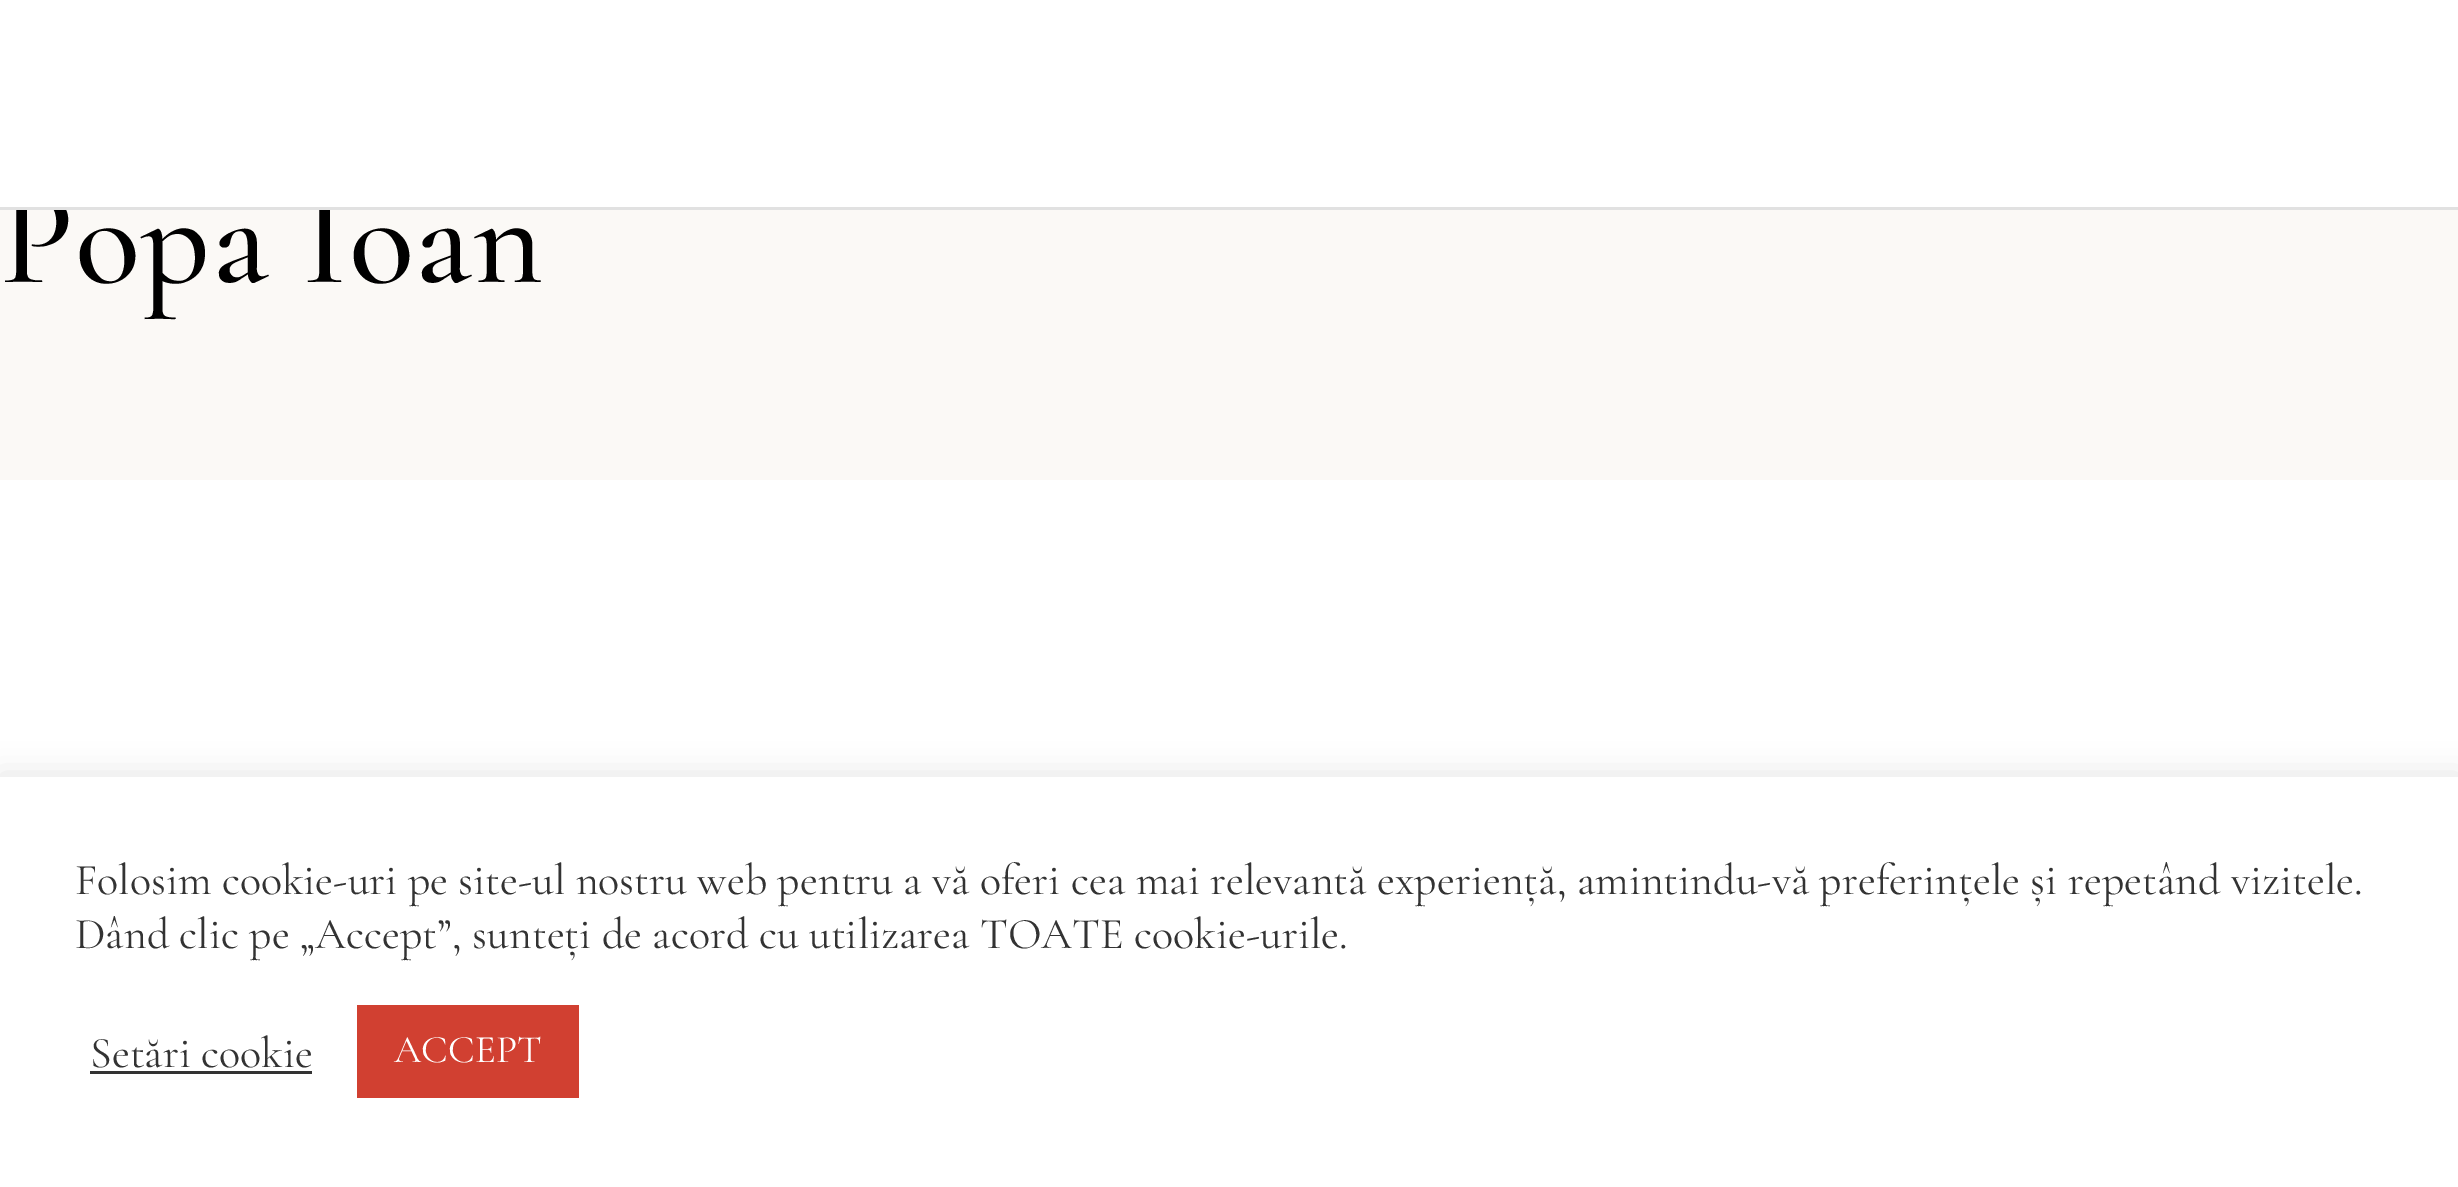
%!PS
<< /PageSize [2458 1187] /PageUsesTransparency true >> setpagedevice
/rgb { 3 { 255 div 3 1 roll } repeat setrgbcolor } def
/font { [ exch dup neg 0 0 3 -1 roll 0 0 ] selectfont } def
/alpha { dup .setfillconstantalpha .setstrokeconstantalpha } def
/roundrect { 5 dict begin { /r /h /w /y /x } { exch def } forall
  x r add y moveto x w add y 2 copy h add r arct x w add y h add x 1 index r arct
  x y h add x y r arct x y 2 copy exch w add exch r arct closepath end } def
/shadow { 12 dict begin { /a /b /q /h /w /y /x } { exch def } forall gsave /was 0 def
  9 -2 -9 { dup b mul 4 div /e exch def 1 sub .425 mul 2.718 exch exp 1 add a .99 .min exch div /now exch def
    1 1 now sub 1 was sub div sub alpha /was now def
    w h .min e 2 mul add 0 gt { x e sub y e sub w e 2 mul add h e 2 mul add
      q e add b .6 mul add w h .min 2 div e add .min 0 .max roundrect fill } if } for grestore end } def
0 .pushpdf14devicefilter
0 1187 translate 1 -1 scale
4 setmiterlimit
255 255 255 rgb
0 0 2458 1187 rectfill
251 249 246 rgb
0 210 2458 270 rectfill
172 171 171 rgb
0 774 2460 411 0 15 0.3 shadow
[
  [0 777 2458 410 255 255 255]
  [90 1071 222 3 51 51 51]
  [357 1005 222 93 209 64 49]
] { aload pop rgb rectfill } forall
/CormorantGaramond-Medium 135 font
0 0 0 rgb
0 282 moveto 1.25 0 (Popa Ioan) ashow
225 225 225 rgb
0 207 2458 3 rectfill
255 255 255 rgb
5 197 338 10 rectfill
/CormorantGaramond-Regular 44 font
51 51 51 rgb
[
  [(Folosim cookie-uri pe site-ul nostru web pentru a vă oferi cea mai relevantă experiență, amintindu-vă preferințele și repetând vizitele.) 75 894]
  [(Dând clic pe „Accept”, sunteți de acord cu utilizarea TOATE cookie-urile.) 75 948]
  [(Setări cookie) 90 1067]
] { aload pop moveto show } forall
/CormorantGaramond-Regular 39 font
255 255 255 rgb
394 1062 moveto (ACCEPT) show
.poppdf14devicefilter showpage
